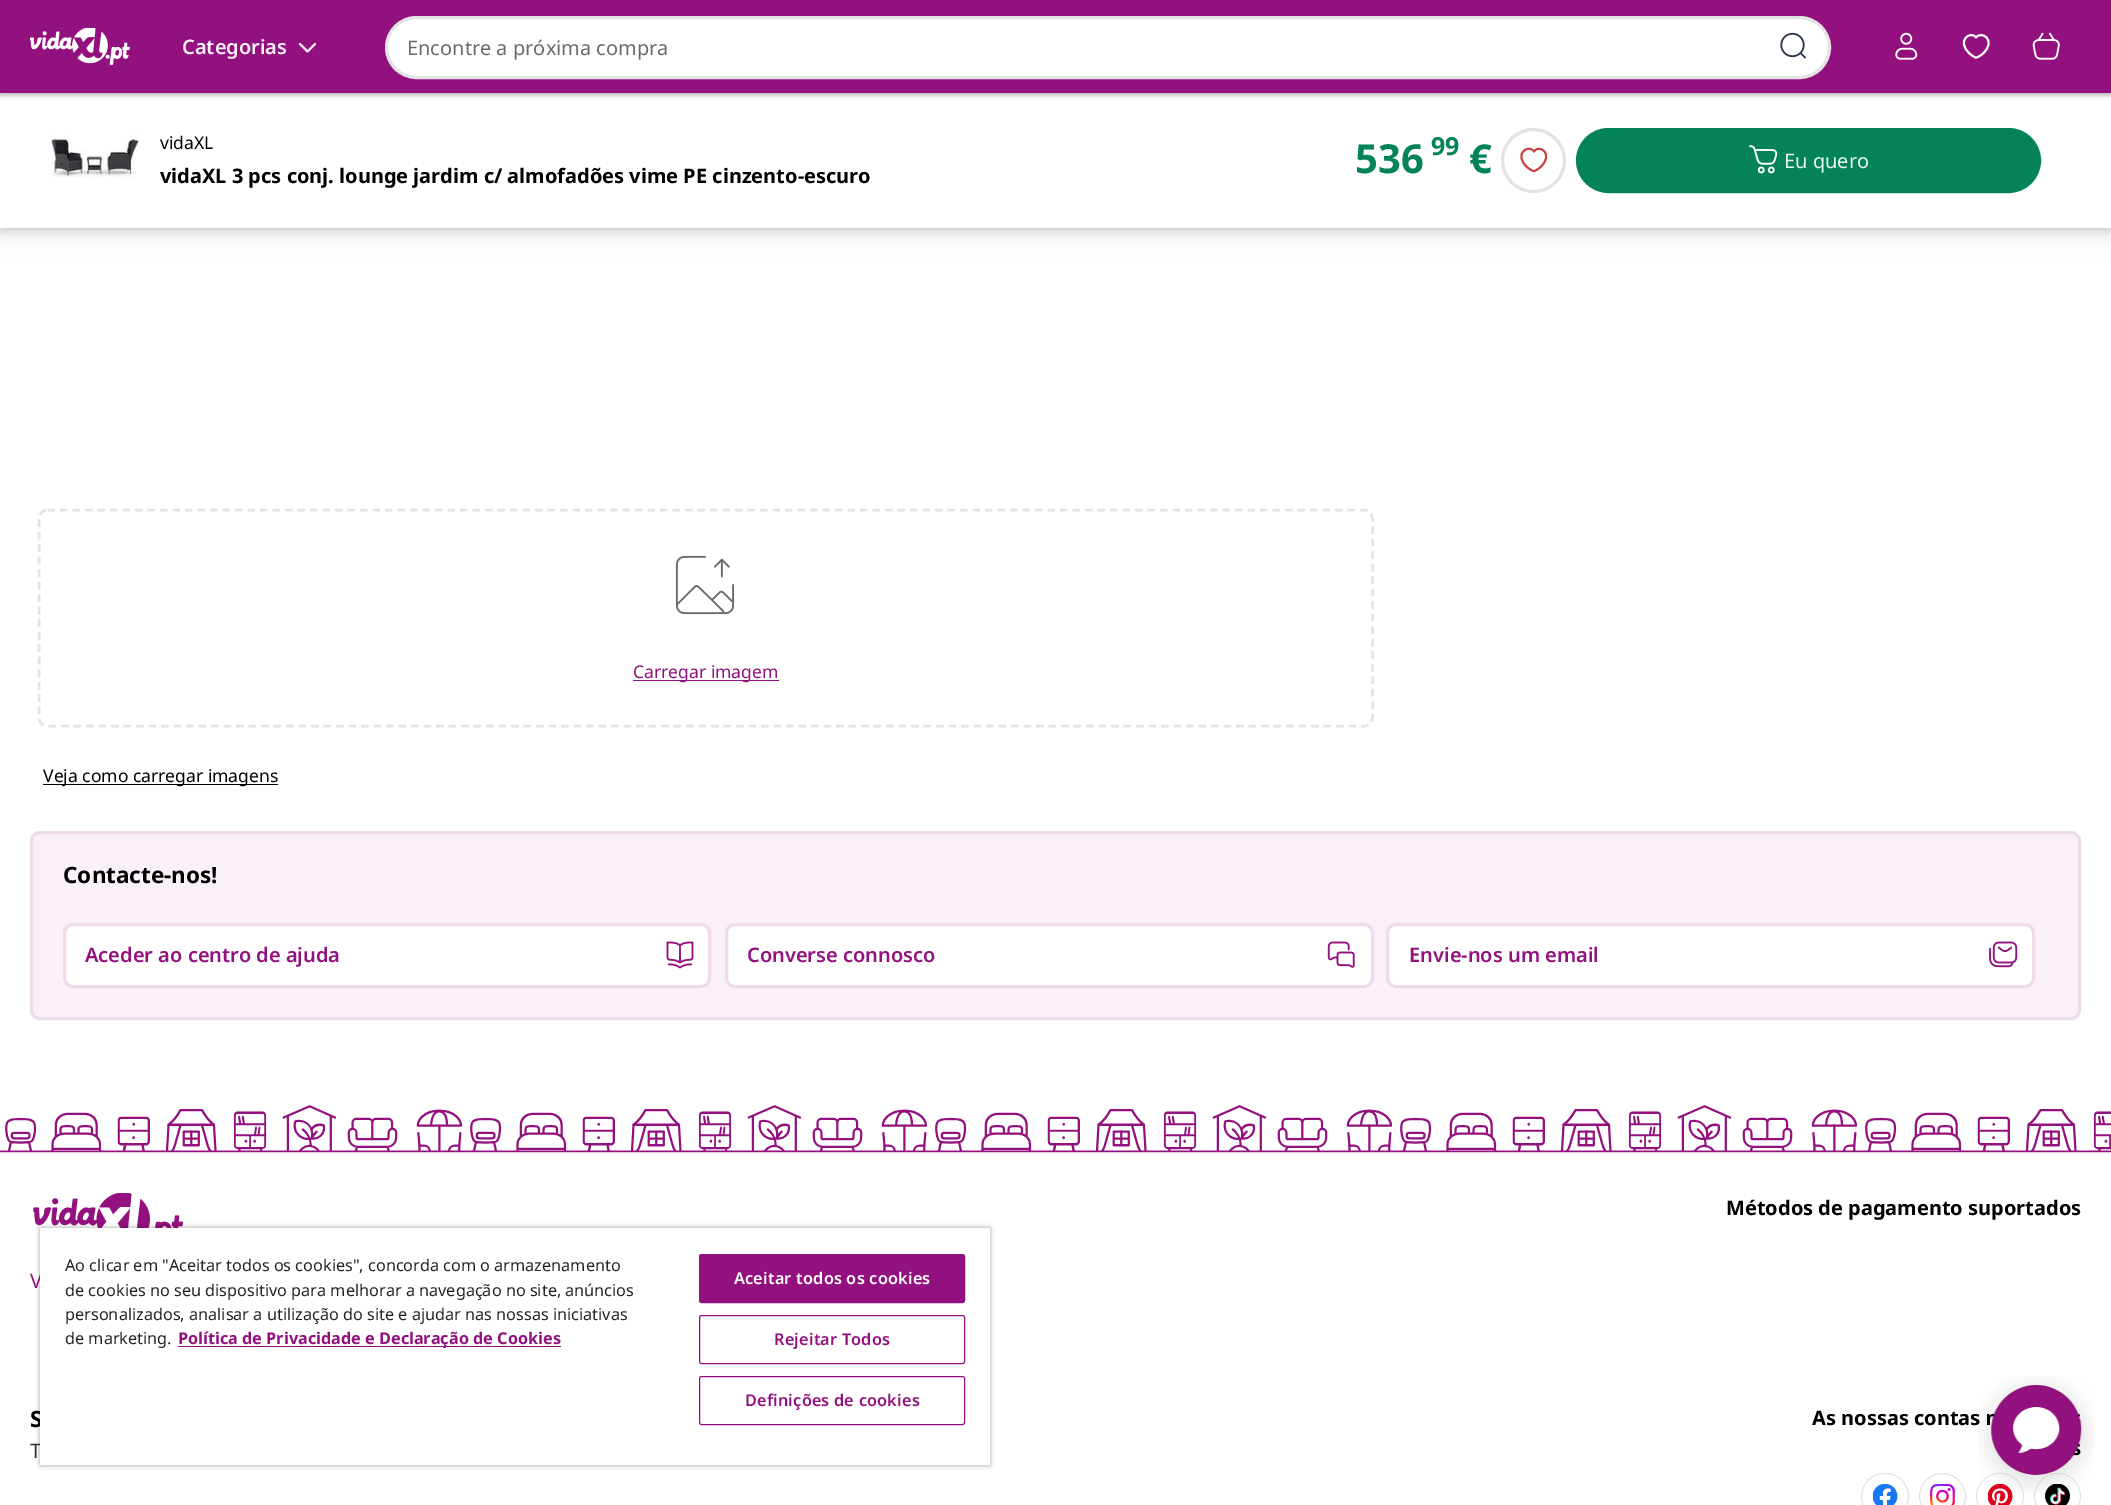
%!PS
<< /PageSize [2111 1505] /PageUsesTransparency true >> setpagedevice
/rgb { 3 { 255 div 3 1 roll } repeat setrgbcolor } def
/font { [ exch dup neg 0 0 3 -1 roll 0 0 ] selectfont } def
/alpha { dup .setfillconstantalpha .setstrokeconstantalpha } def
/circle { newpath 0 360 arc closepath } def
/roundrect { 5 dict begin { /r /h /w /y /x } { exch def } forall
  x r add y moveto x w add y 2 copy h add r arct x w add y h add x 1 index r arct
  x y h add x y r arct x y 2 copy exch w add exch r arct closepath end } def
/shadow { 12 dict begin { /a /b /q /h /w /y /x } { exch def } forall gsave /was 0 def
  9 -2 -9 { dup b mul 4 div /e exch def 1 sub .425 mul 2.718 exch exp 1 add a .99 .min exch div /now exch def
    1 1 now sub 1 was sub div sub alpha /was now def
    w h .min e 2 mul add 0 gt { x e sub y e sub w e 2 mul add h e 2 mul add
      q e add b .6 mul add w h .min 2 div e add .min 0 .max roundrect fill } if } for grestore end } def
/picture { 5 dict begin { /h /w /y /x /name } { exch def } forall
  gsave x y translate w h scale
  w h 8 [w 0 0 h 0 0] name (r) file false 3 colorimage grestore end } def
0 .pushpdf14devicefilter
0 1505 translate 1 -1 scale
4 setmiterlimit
255 255 255 rgb
0 0 2111 1505 rectfill
0 0 0 rgb
0 98 2111 135 0 12.5 0.1 shadow
0 94 2111 135 0 2.5 0.1 shadow
0 98 2111 135 0 6 0.05 shadow
255 255 255 rgb
0 93 2111 135 rectfill
35 35 35 rgb
0 3 2111 92 0 2.5 0.35 shadow
147 17 126 rgb
0 0 2111 93 rectfill
(img/1.rgb) 30 28 100 37 picture
249 241 247 rgb
1.9 setlinewidth
1 setlinecap
1 setlinejoin
315 44 moveto 307.5 51.5 lineto 300 44 lineto stroke
255 255 255 rgb
386.5 17.5 1443 60 30 roundrect gsave fill grestore
227 227 227 rgb
3 setlinewidth
0 setlinecap
0 setlinejoin
stroke
(img/2.rgb) 1780 32 26 27 picture
(img/3.rgb) 1895 32 23 28 picture
255 255 255 rgb
1.9 setlinewidth
1 setlinecap
1 setlinejoin
1976 57.5 moveto 1978 57.5 1982 54.5 1983 53.5 curveto 1997 40.5 1981.5 30 1976 37.5 curveto 1971 30 1955.5 40.5 1969.5 53.5 curveto 1970.5 54.5 1974.5 57.5 1976 57.5 curveto closepath stroke
(img/4.rgb) 2032 32 28 28 picture
(img/5.rgb) 50 134 90 44 picture
227 227 227 rgb
3 setlinewidth
0 setlinecap
0 setlinejoin
1533.5 160.5 31 circle stroke
200 63 61 rgb
1.9 setlinewidth
1 setlinecap
1 setlinejoin
1534 171 moveto 1535.5 171 1539.5 168 1540.5 167 curveto 1554.5 154 1539 143.5 1534 151.5 curveto 1528.5 143.5 1513 154 1527 167 curveto 1528 168 1532 171 1534 171 curveto closepath stroke
4 130 89 rgb
1577.5 129.5 462 62 31 roundrect gsave fill grestore
3 setlinewidth
0 setlinecap
0 setlinejoin
stroke
(img/6.rgb) 1749 145 29 29 picture
227 227 227 rgb
2.5 setlinewidth
[7.5 5] 0 setdash
47.5 510 moveto 1364 510 lineto 1368.5 510 1372.5 514 1372.5 519 curveto 1372.5 717.5 lineto 1372.5 722.5 1368.5 726 1364 726 curveto 47.5 726 lineto 42.5 726 39 722.5 39 717.5 curveto 39 519 lineto 39 514 42.5 510 47.5 510 curveto closepath stroke
(img/7.rgb) 675 555 60 60 picture
147 17 126 rgb
633 680 146 1 rectfill
0 0 0 rgb
43 784 235 1 rectfill
249 241 247 rgb
31.5 832.5 2048 186 8.5 roundrect gsave fill grestore
239 219 236 rgb
3 setlinewidth
[] 0 setdash
stroke
255 255 255 rgb
64.5 924.5 645 62 8.5 roundrect gsave fill grestore
239 219 236 rgb
stroke
(img/8.rgb) 666 941 28 28 picture
255 255 255 rgb
726.5 924.5 646 62 8.5 roundrect gsave fill grestore
239 219 236 rgb
stroke
(img/9.rgb) 1327 941 28 27 picture
255 255 255 rgb
1387.5 924.5 646 62 8.5 roundrect gsave fill grestore
239 219 236 rgb
stroke
(img/10.rgb) 1989 941 29 27 picture
(img/11.rgb) 0 1105 2111 48 picture
(img/12.rgb) 33 1193 150 35 picture
227 227 227 rgb
1 setlinewidth
1861.5 1473.5 47 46 23 roundrect stroke
(img/13.rgb) 1873 1484 25 21 picture
1942.5 1496.5 23 circle stroke
(img/14.rgb) 1930 1484 25 21 picture
1976.5 1473.5 47 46 23 roundrect stroke
(img/15.rgb) 1988 1484 25 21 picture
2057.5 1496.5 23 circle stroke
(img/16.rgb) 2045 1484 25 21 picture
0 0 0 rgb
40 1228 950 237 0 2.5 0.35 shadow
/NotoSans-SemiBold 20 font
249 241 247 rgb
182 54 moveto (Categorias) show
/NotoSans-Regular 20 font
106 106 106 rgb
407 55 moveto (Encontre a próxima compra) show
/NotoSans-Regular 17.5 font
0 0 0 rgb
160 149 moveto (vidaXL) show
/NotoSans-Bold 20 font
160 183 moveto (vidaXL 3 pcs conj. lounge jardim c/ almofadões vime PE cinzento-escuro) show
/NotoSans-Bold 40 font
4 130 89 rgb
1355 173 moveto (536) show
/NotoSans-Bold 25 font
1431 155 moveto (99) show
/NotoSans-Bold 40 font
1469 173 moveto (€) show
/NotoSans-Regular 20 font
233 249 239 rgb
1784 168 moveto (Eu quero) show
/NotoSans-Regular 17.5 font
147 17 126 rgb
633 678 moveto (Carregar imagem) show
0 0 0 rgb
43 782 moveto (Veja como carregar imagens) show
/NotoSans-Bold 22.5 font
63 883 moveto (Contacte-nos!) show
/NotoSans-SemiBold 20 font
147 17 126 rgb
[
  [(Aceder ao centro de ajuda) 85 962]
  [(Converse connosco) 747 962]
  [(Envie-nos um email) 1409 962]
] { aload pop moveto show } forall
/NotoSans-Bold 20 font
0 0 0 rgb
1726 1215 moveto (Métodos de pagamento suportados) show
/NotoSans-Regular 20 font
147 17 126 rgb
30 1288 moveto (V) show
/NotoSans-Bold 22.5 font
0 0 0 rgb
30 1427 moveto (S) show
/NotoSans-Regular 20 font
49 49 49 rgb
30 1458 moveto (T) show
/NotoSans-Bold 20 font
0 0 0 rgb
1812 1425 moveto (As nossas contas n) show
255 255 255 rgb
40 1228 950 237 rectfill
/NotoSans-Regular 16.25 font
35 35 35 rgb
[
  [(Ao clicar em "Aceitar todos os cookies", concorda com o armazenamento) 65 1271]
  [(de cookies no seu dispositivo para melhorar a navegação no site, anúncios) 65 1296]
  [(personalizados, analisar a utilização do site e ajudar nas nossas iniciativas) 65 1320]
  [(de marketing.) 65 1344]
] { aload pop moveto show } forall
147 17 126 rgb
178 1346 383 1 rectfill
/NotoSans-Bold 16.25 font
178 1344 moveto (Política de Privacidade e Declaração de Cookies) show
699.5 1254.5 265 48 2 roundrect gsave fill grestore
stroke
/NotoSans-SemiBold 16.25 font
255 255 255 rgb
734 1284 moveto 0.2 0 (Aceitar todos os cookies) ashow
147 17 126 rgb
699.5 1315.5 265 48 2 roundrect stroke
774 1345 moveto 0.2 0 (Rejeitar Todos) ashow
699.5 1376.5 265 48 2 roundrect stroke
745 1406 moveto 0.2 0 (Definições de cookies) ashow
(img/17.rgb) 1978 1376 117 118 picture
.poppdf14devicefilter showpage
